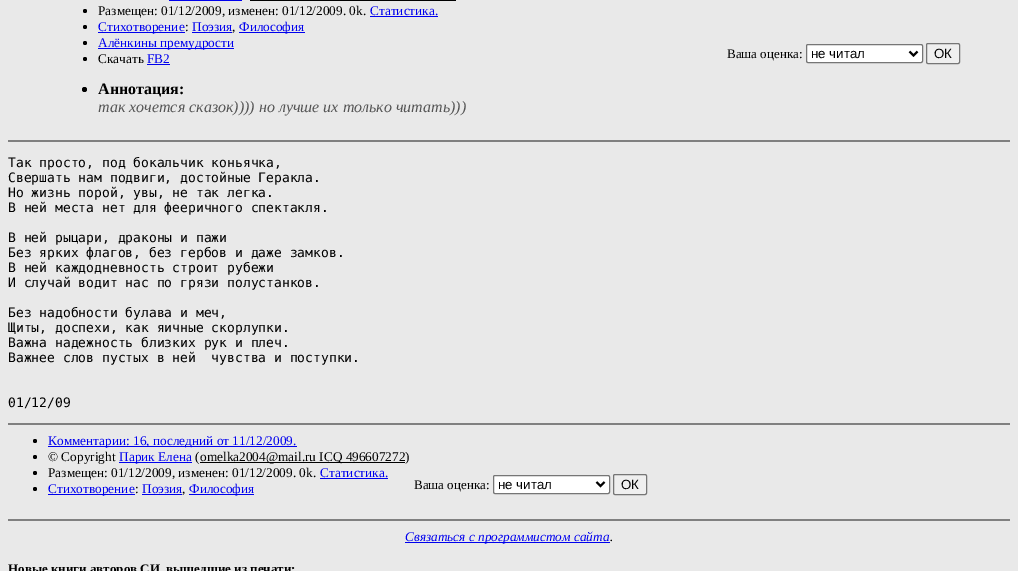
%!PS
<< /PageSize [1018 571] >> setpagedevice
/rgb { 3 { 255 div 3 1 roll } repeat setrgbcolor } def
/font { [ exch dup neg 0 0 3 -1 roll 0 0 ] selectfont } def
/circle { newpath 0 360 arc closepath } def
/roundrect { 5 dict begin { /r /h /w /y /x } { exch def } forall
  x r add y moveto x w add y 2 copy h add r arct x w add y h add x 1 index r arct
  x y h add x y r arct x y 2 copy exch w add exch r arct closepath end } def
0 571 translate 1 -1 scale
4 setmiterlimit
233 233 233 rgb
0 0 1018 571 rectfill
0 0 238 rgb
169 0 73 1 rectfill
0 0 0 rgb
250 0 206 1 rectfill
85 11 2 circle fill
0 0 238 rgb
370 16 68 1 rectfill
0 0 0 rgb
85 27 2 circle fill
[
  [98 32 87 1 0 0 238]
  [192 32 40 1 0 0 238]
  [239 32 66 1 0 0 238]
] { aload pop rgb rectfill } forall
0 0 0 rgb
85 43 2 circle fill
0 0 238 rgb
98 48 136 1 rectfill
0 0 0 rgb
85 59 2 circle fill
0 0 238 rgb
147 64 23 1 rectfill
255 255 255 rgb
806.5 44.5 116 18 1.5 roundrect gsave fill grestore
118 118 118 rgb
stroke
0 0 0 rgb
2 setlinewidth
909.5 51.5 moveto 913.5 55.5 lineto 917.5 51.5 lineto stroke
239 239 239 rgb
926.5 43.5 33 20 1.5 roundrect gsave fill grestore
118 118 118 rgb
1 setlinewidth
stroke
0 0 0 rgb
84.5 89.5 2.5 circle fill
128 128 128 rgb
8 140 1002 2 rectfill
8 423 1002 2 rectfill
0 0 0 rgb
35 441 2 circle fill
0 0 238 rgb
48 446 249 1 rectfill
0 0 0 rgb
35 457 2 circle fill
0 0 238 rgb
119 462 73 1 rectfill
0 0 0 rgb
200 462 205 1 rectfill
35 473 2 circle fill
0 0 238 rgb
320 478 68 1 rectfill
0 0 0 rgb
35 489 2 circle fill
[
  [48 494 87 1 0 0 238]
  [142 494 40 1 0 0 238]
  [189 494 65 1 0 0 238]
] { aload pop rgb rectfill } forall
255 255 255 rgb
493.5 475.5 116 18 1.5 roundrect gsave fill grestore
118 118 118 rgb
stroke
0 0 0 rgb
2 setlinewidth
596.5 482 moveto 600.5 486 lineto 604.5 482 lineto stroke
239 239 239 rgb
613.5 474.5 33 20 1.5 roundrect gsave fill grestore
118 118 118 rgb
1 setlinewidth
stroke
128 128 128 rgb
8 519 1002 2 rectfill
0 0 238 rgb
405 542 205 1 rectfill
/LiberationSerif-Regular 13.3 font
0 0 0 rgb
98 15 moveto (Размещен: 01/12/2009, изменен: 01/12/2009. 0k.) show
0 0 238 rgb
370 15 moveto (Статистика.) show
98 31 moveto (Стихотворение) show
0 0 0 rgb
185 31 moveto (:) show
0 0 238 rgb
192 31 moveto (Поэзия) show
239 31 moveto (Философия) show
0 0 0 rgb
232 31 moveto (,) show
0 0 238 rgb
98 47 moveto (Алёнкины премудрости) show
0 0 0 rgb
98 63 moveto (Скачать) show
0 0 238 rgb
147 63 moveto (FB2) show
/LiberationSerif-Regular 13 font
0 0 0 rgb
727 58 moveto (Ваша оценка:) show
/LiberationSans-Regular 13.3 font
811 58 moveto (не читал) show
934 58 moveto (ОК) show
/LiberationSerif-Bold 16 font
98 94 moveto (Аннотация:) show
/LiberationSerif-Italic 16 font
85 85 85 rgb
98 112 moveto (так хочется сказок\)\)\)\) но лучше их только читать\)\)\)) show
/DejaVuSansMono-Regular 13 font
0 0 0 rgb
[
  [(Так просто, под бокальчик коньячка,) 8 167]
  [(Свершать нам подвиги, достойные Геракла.) 8 182]
  [(Но жизнь порой, увы, не так легка.) 8 197]
  [(В ней места нет для фееричного спектакля.) 8 212]
  [(В ней рыцари, драконы и пажи) 8 242]
  [(Без ярких флагов, без гербов и даже замков.) 8 257]
  [(В ней каждодневность строит рубежи) 8 272]
  [(И случай водит нас по грязи полустанков.) 8 287]
  [(Без надобности булава и меч,) 8 317]
  [(Щиты, доспехи, как яичные скорлупки.) 8 332]
  [(Важна надежность близких рук и плеч.) 8 347]
  [(Важнее слов пустых в ней  чувства и поступки.) 8 362]
  [(01/12/09) 8 407]
] { aload pop moveto show } forall
/LiberationSerif-Regular 13.3 font
0 0 238 rgb
48 445 moveto (Комментарии: 16, последний от 11/12/2009.) show
0 0 0 rgb
48 461 moveto (© Copyright) show
0 0 238 rgb
119 461 moveto (Парик Елена) show
0 0 0 rgb
[
  [(\() 195 461]
  [(omelka2004@mail.ru ICQ 496607272\)) 200 461]
  [(Размещен: 01/12/2009, изменен: 01/12/2009. 0k.) 48 477]
] { aload pop moveto show } forall
0 0 238 rgb
320 477 moveto (Статистика.) show
48 493 moveto (Стихотворение) show
0 0 0 rgb
135 493 moveto (:) show
0 0 238 rgb
142 493 moveto (Поэзия) show
189 493 moveto (Философия) show
0 0 0 rgb
182 493 moveto (,) show
/LiberationSerif-Regular 13 font
414 489 moveto (Ваша оценка:) show
/LiberationSans-Regular 13.3 font
498 489 moveto (не читал) show
621 489 moveto (ОК) show
/LiberationSerif-Italic 13.3 font
0 0 238 rgb
405 541 moveto (Связаться с программистом сайта) show
0 0 0 rgb
610 541 moveto (.) show
/LiberationSerif-Bold 13 font
8 573 moveto (Новые книги авторов СИ, вышедшие из печати:) show
showpage
